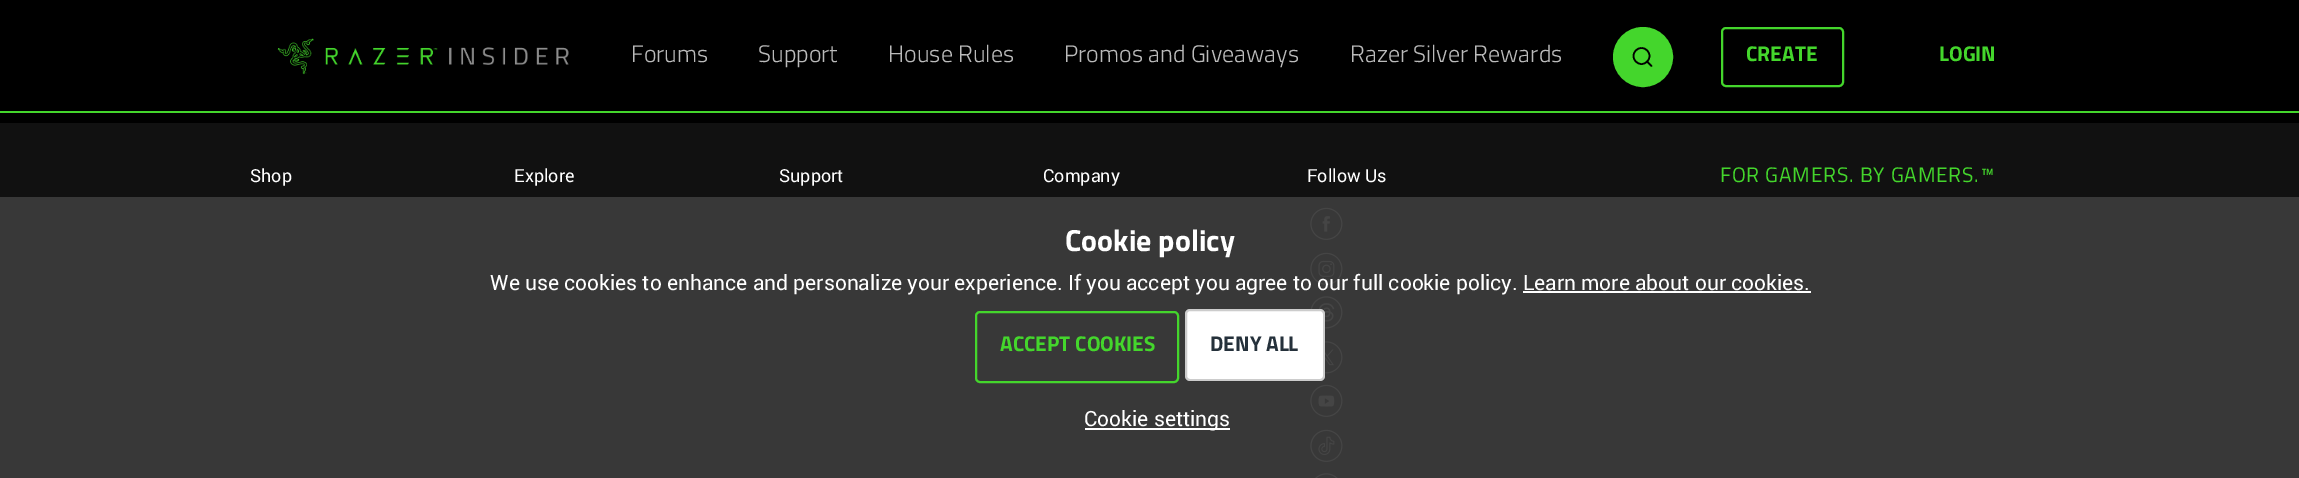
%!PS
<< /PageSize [2299 478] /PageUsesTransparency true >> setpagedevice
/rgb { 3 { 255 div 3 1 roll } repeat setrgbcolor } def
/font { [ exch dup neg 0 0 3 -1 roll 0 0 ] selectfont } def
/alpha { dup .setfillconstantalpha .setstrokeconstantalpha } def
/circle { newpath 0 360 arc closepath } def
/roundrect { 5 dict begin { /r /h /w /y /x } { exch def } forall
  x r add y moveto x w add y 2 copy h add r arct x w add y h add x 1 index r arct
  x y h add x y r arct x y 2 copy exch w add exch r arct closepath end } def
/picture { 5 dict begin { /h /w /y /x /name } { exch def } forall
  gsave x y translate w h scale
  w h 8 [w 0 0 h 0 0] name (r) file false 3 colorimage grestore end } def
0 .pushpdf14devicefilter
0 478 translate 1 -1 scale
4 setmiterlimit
0 0 0 rgb
0 0 2299 478 rectfill
68 214 44 rgb
0 111 2299 2 rectfill
(img/1.rgb) 277 38 292 37 picture
1643 57 29 circle gsave fill grestore
68 214 45 rgb
2 setlinewidth
stroke
0 0 0 rgb
1.6 setlinewidth
1641.5 56 8 circle stroke
1 setlinecap
1647 61.5 moveto 1651.5 66 lineto stroke
68 214 44 rgb
2 setlinewidth
0 setlinecap
1722 28 121 58 4 roundrect stroke
17 17 17 rgb
0 123 2299 74 rectfill
56 56 56 rgb
0 197 2299 281 rectfill
(img/2.rgb) 1310 207 33 33 picture
(img/3.rgb) 1310 252 33 33 picture
(img/4.rgb) 1310 296 33 33 picture
(img/5.rgb) 1325 341 18 33 picture
(img/6.rgb) 1310 384 33 33 picture
(img/7.rgb) 1310 429 33 33 picture
(img/8.rgb) 1315 473 23 5 picture
255 255 255 rgb
1523 291 288 2 rectfill
68 214 44 rgb
976 312 202 70 4 roundrect stroke
255 255 255 rgb
1185 309 140 72 5 roundrect fill
0.2 alpha
0 0 0 rgb
1186 310 138 70 4 roundrect stroke
1 alpha
255 255 255 rgb
1085 428 145 2 rectfill
/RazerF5-Light 24 font
187 187 187 rgb
[
  [(Forums) 631 62]
  [(Support) 758 62]
  [(House Rules) 888 62]
  [(Promos and Giveaways) 1064 62]
  [(Razer Silver Rewards) 1350 62]
] { aload pop moveto show } forall
/RazerF5-Bold 21 font
68 214 44 rgb
1746 61 moveto (CREATE) show
1939 61 moveto (LOGIN) show
/Roboto-Regular 18 font
255 255 255 rgb
[
  [(Shop) 250 182]
  [(Explore) 514 182]
  [(Support) 779 182]
  [(Company) 1043 182]
  [(Follow Us) 1307 182]
] { aload pop moveto show } forall
/RazerF5-Regular 21 font
68 214 44 rgb
1720 182 moveto 0.75 0 (FOR GAMERS. BY GAMERS.™) ashow
/RazerF5-Bold 30 font
255 255 255 rgb
1065 251 moveto (Cookie policy) show
/Roboto-Regular 21 font
490 290 moveto (We use cookies to enhance and personalize your experience. If you accept you agree to our full cookie policy. Learn more about our cookies.) show
/RazerF5-Bold 21 font
68 214 44 rgb
1000 351 moveto (ACCEPT COOKIES) show
37 49 59 rgb
1210 351 moveto (DENY ALL) show
/Roboto-Regular 21 font
255 255 255 rgb
1084 426 moveto (Cookie settings) show
.poppdf14devicefilter showpage
